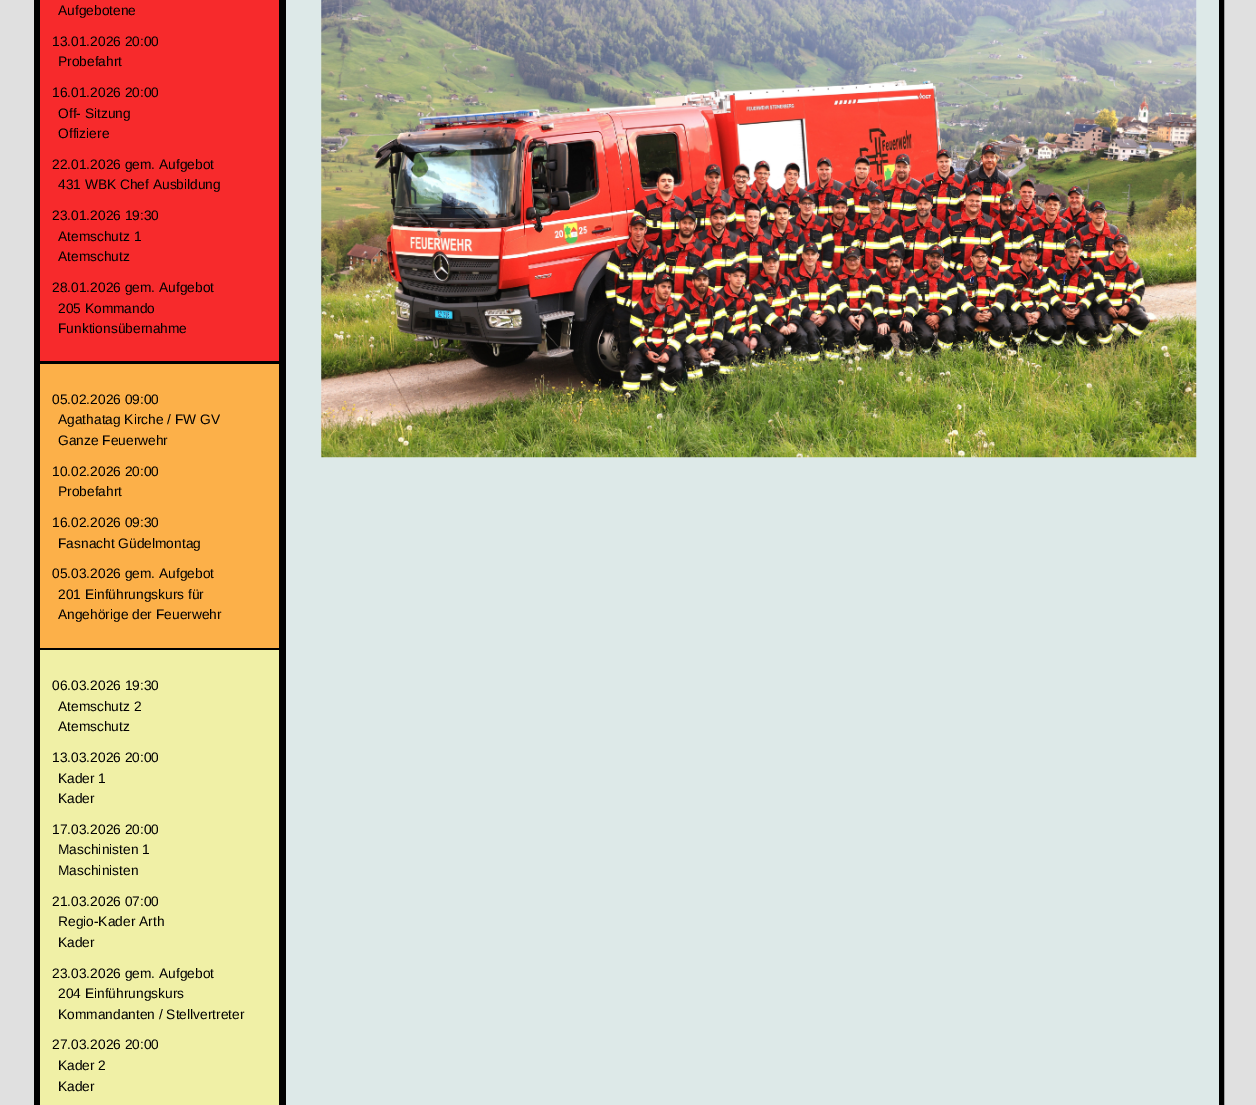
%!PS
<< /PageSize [1256 1105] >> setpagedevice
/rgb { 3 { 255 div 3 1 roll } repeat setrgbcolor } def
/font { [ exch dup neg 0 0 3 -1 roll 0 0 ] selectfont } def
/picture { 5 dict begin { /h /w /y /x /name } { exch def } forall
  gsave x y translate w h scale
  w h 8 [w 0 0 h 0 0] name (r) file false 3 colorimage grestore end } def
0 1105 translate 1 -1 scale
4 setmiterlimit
224 224 224 rgb
0 0 1256 1105 rectfill
0 0 0 rgb
34.5 -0.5 1189 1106 rectstroke
[
  [35 0 5 1105 0 0 0]
  [40 361 239 3 0 0 0]
  [40 0 239 361 247 42 44]
  [40 648 239 2 0 0 0]
  [40 364 239 284 252 176 73]
  [40 650 239 455 240 240 166]
  [279 0 7 1105 1 1 1]
  [286 0 933 1105 221 233 232]
  [1219 0 4 1105 0 0 0]
] { aload pop rgb rectfill } forall
(img/1.rgb) 321 0 876 458 picture
/LiberationSans-Regular 13.75 font
[
  [(Aufgebotene) 58 15]
  [(13.01.2026 20:00) 52 46]
  [(Probefahrt) 58 66]
  [(16.01.2026 20:00) 52 97]
  [(Off- Sitzung) 58 118]
  [(Offiziere) 58 138]
  [(22.01.2026 gem. Aufgebot) 52 169]
  [(431 WBK Chef Ausbildung) 58 189]
  [(23.01.2026 19:30) 52 220]
  [(Atemschutz 1) 58 241]
  [(Atemschutz) 58 261]
  [(28.01.2026 gem. Aufgebot) 52 292]
  [(205 Kommando) 58 313]
  [(Funktionsübernahme) 58 333]
  [(05.02.2026 09:00) 52 404]
  [(Agathatag Kirche / FW GV) 58 424]
  [(Ganze Feuerwehr) 58 445]
  [(10.02.2026 20:00) 52 476]
  [(Probefahrt) 58 496]
  [(16.02.2026 09:30) 52 527]
  [(Fasnacht Güdelmontag) 58 548]
  [(05.03.2026 gem. Aufgebot) 52 578]
  [(201 Einführungskurs für) 58 599]
  [(Angehörige der Feuerwehr) 58 619]
  [(06.03.2026 19:30) 52 690]
  [(Atemschutz 2) 58 711]
  [(Atemschutz) 58 731]
  [(13.03.2026 20:00) 52 762]
  [(Kader 1) 58 783]
  [(Kader) 58 803]
  [(17.03.2026 20:00) 52 834]
  [(Maschinisten 1) 58 854]
  [(Maschinisten) 58 875]
  [(21.03.2026 07:00) 52 906]
  [(Regio-Kader Arth) 58 926]
  [(Kader) 58 947]
  [(23.03.2026 gem. Aufgebot) 52 978]
  [(204 Einführungskurs) 58 998]
  [(Kommandanten / Stellvertreter) 58 1019]
  [(27.03.2026 20:00) 52 1049]
  [(Kader 2) 58 1070]
  [(Kader) 58 1091]
] { aload pop moveto show } forall
showpage
